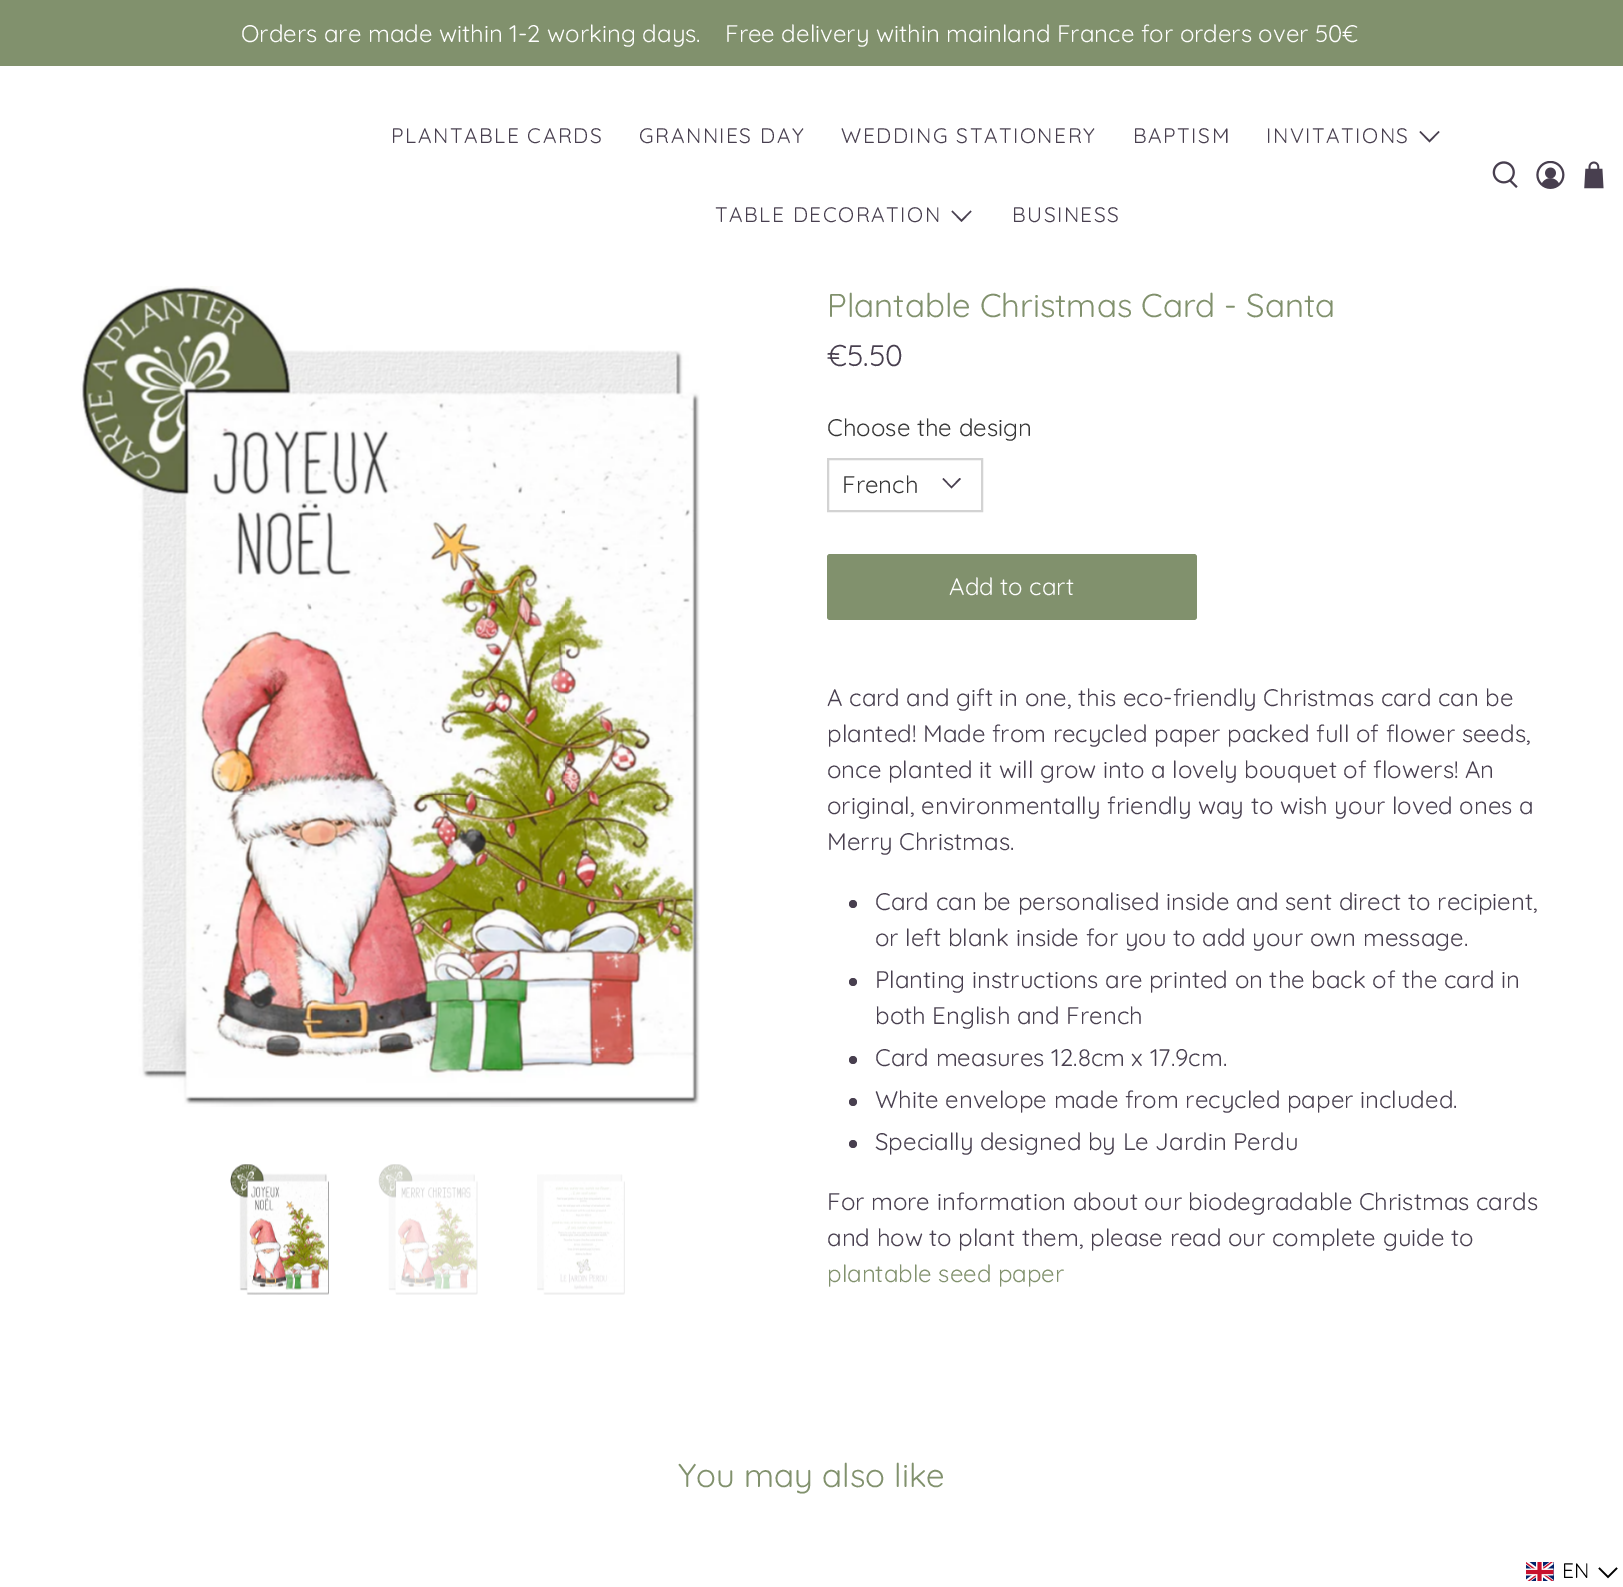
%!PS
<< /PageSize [1623 1587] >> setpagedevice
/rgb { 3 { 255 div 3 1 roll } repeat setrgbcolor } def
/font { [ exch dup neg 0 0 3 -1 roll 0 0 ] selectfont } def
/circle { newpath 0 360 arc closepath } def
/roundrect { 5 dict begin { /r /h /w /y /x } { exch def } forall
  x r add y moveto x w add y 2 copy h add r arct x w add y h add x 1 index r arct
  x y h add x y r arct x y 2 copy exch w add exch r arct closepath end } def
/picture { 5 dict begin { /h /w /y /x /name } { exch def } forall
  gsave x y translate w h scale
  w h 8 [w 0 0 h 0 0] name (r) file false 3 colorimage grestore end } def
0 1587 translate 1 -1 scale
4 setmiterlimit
255 255 255 rgb
0 0 1623 1587 rectfill
129 145 109 rgb
0 0 1623 66 rectfill
72 63 79 rgb
1429.5 142.5 moveto 1419.5 132 lineto 1420.5 131 lineto 1429.5 140 lineto 1438.5 131 lineto 1439.5 132 lineto closepath fill
961.5 222 moveto 951.5 211.5 lineto 952.5 210.5 lineto 961.5 219.5 lineto 970.5 210.5 lineto 971.5 211.5 lineto closepath fill
(img/1.rgb) 1492 161 26 27 picture
(img/2.rgb) 1536 161 29 28 picture
(img/3.rgb) 1584 161 20 28 picture
(img/4.rgb) 80 286 620 821 picture
(img/5.rgb) 230 1164 99 131 picture
(img/6.rgb) 378 1164 100 131 picture
(img/7.rgb) 537 1174 88 121 picture
211 211 211 rgb
2 setlinewidth
828 459 154 52 rectstroke
72 63 79 rgb
951.5 488.5 moveto 942.5 479 lineto 943.5 478 lineto 951.5 486.5 lineto 959.5 478 lineto 961 479 lineto closepath fill
129 145 109 rgb
827 554 370 66 3 roundrect fill
72 63 79 rgb
853 904 4 circle fill
853 982 4 circle fill
853 1060 4 circle fill
853 1102 4 circle fill
853 1144 4 circle fill
(img/8.rgb) 1526 1562 28 19 picture
0 0 0 rgb
1.5 setlinewidth
1599 1568 moveto 1608 1577 lineto 1617 1568 lineto stroke
/Quicksand-Regular 24 font
255 255 255 rgb
241 42 moveto (Orders are made within 1-2 working days.) show
725 42 moveto (Free delivery within mainland France for orders over 50€) show
/Quicksand-Regular 21 font
72 63 79 rgb
391 143 moveto 1.5 0 (PLANTABLE CARDS) ashow
639 143 moveto 1.5 0 (GRANNIES DAY) ashow
841 143 moveto 1.5 0 (WEDDING STATIONERY) ashow
1133 143 moveto 1.5 0 (BAPTISM) ashow
1266 143 moveto 1.5 0 (INVITATIONS) ashow
715 222 moveto 1.5 0 (TABLE DECORATION) ashow
1012 222 moveto 1.5 0 (BUSINESS) ashow
/Quicksand-Regular 33 font
129 145 109 rgb
827 317 moveto (Plantable Christmas Card - Santa) show
/Quicksand-Regular 30 font
72 63 79 rgb
827 366 moveto (€5.50) show
/Quicksand-Regular 24 font
54 54 54 rgb
827 436 moveto (Choose the design) show
842 493 moveto (French) show
255 255 255 rgb
949 595 moveto (Add to cart) show
72 63 79 rgb
[
  [(A card and gift in one, this eco-friendly Christmas card can be) 827 706]
  [(planted! Made from recycled paper packed full of flower seeds,) 827 742]
  [(once planted it will grow into a lovely bouquet of flowers! An) 827 778]
  [(original, environmentally friendly way to wish your loved ones a) 827 814]
  [(Merry Christmas.) 827 850]
  [(Card can be personalised inside and sent direct to recipient,) 875 910]
  [(or left blank inside for you to add your own message.) 875 946]
  [(Planting instructions are printed on the back of the card in) 875 988]
  [(both English and French) 875 1024]
  [(Card measures 12.8cm x 17.9cm.) 875 1066]
  [(White envelope made from recycled paper included.) 875 1108]
  [(Specially designed by Le Jardin Perdu) 875 1150]
  [(For more information about our biodegradable Christmas cards) 827 1210]
  [(and how to plant them, please read our complete guide to) 827 1246]
] { aload pop moveto show } forall
129 145 109 rgb
827 1282 moveto (plantable seed paper) show
/Quicksand-Regular 33 font
678 1487 moveto (You may also like) show
/Quicksand-Regular 21 font
0 0 0 rgb
1562 1578 moveto (EN) show
showpage
